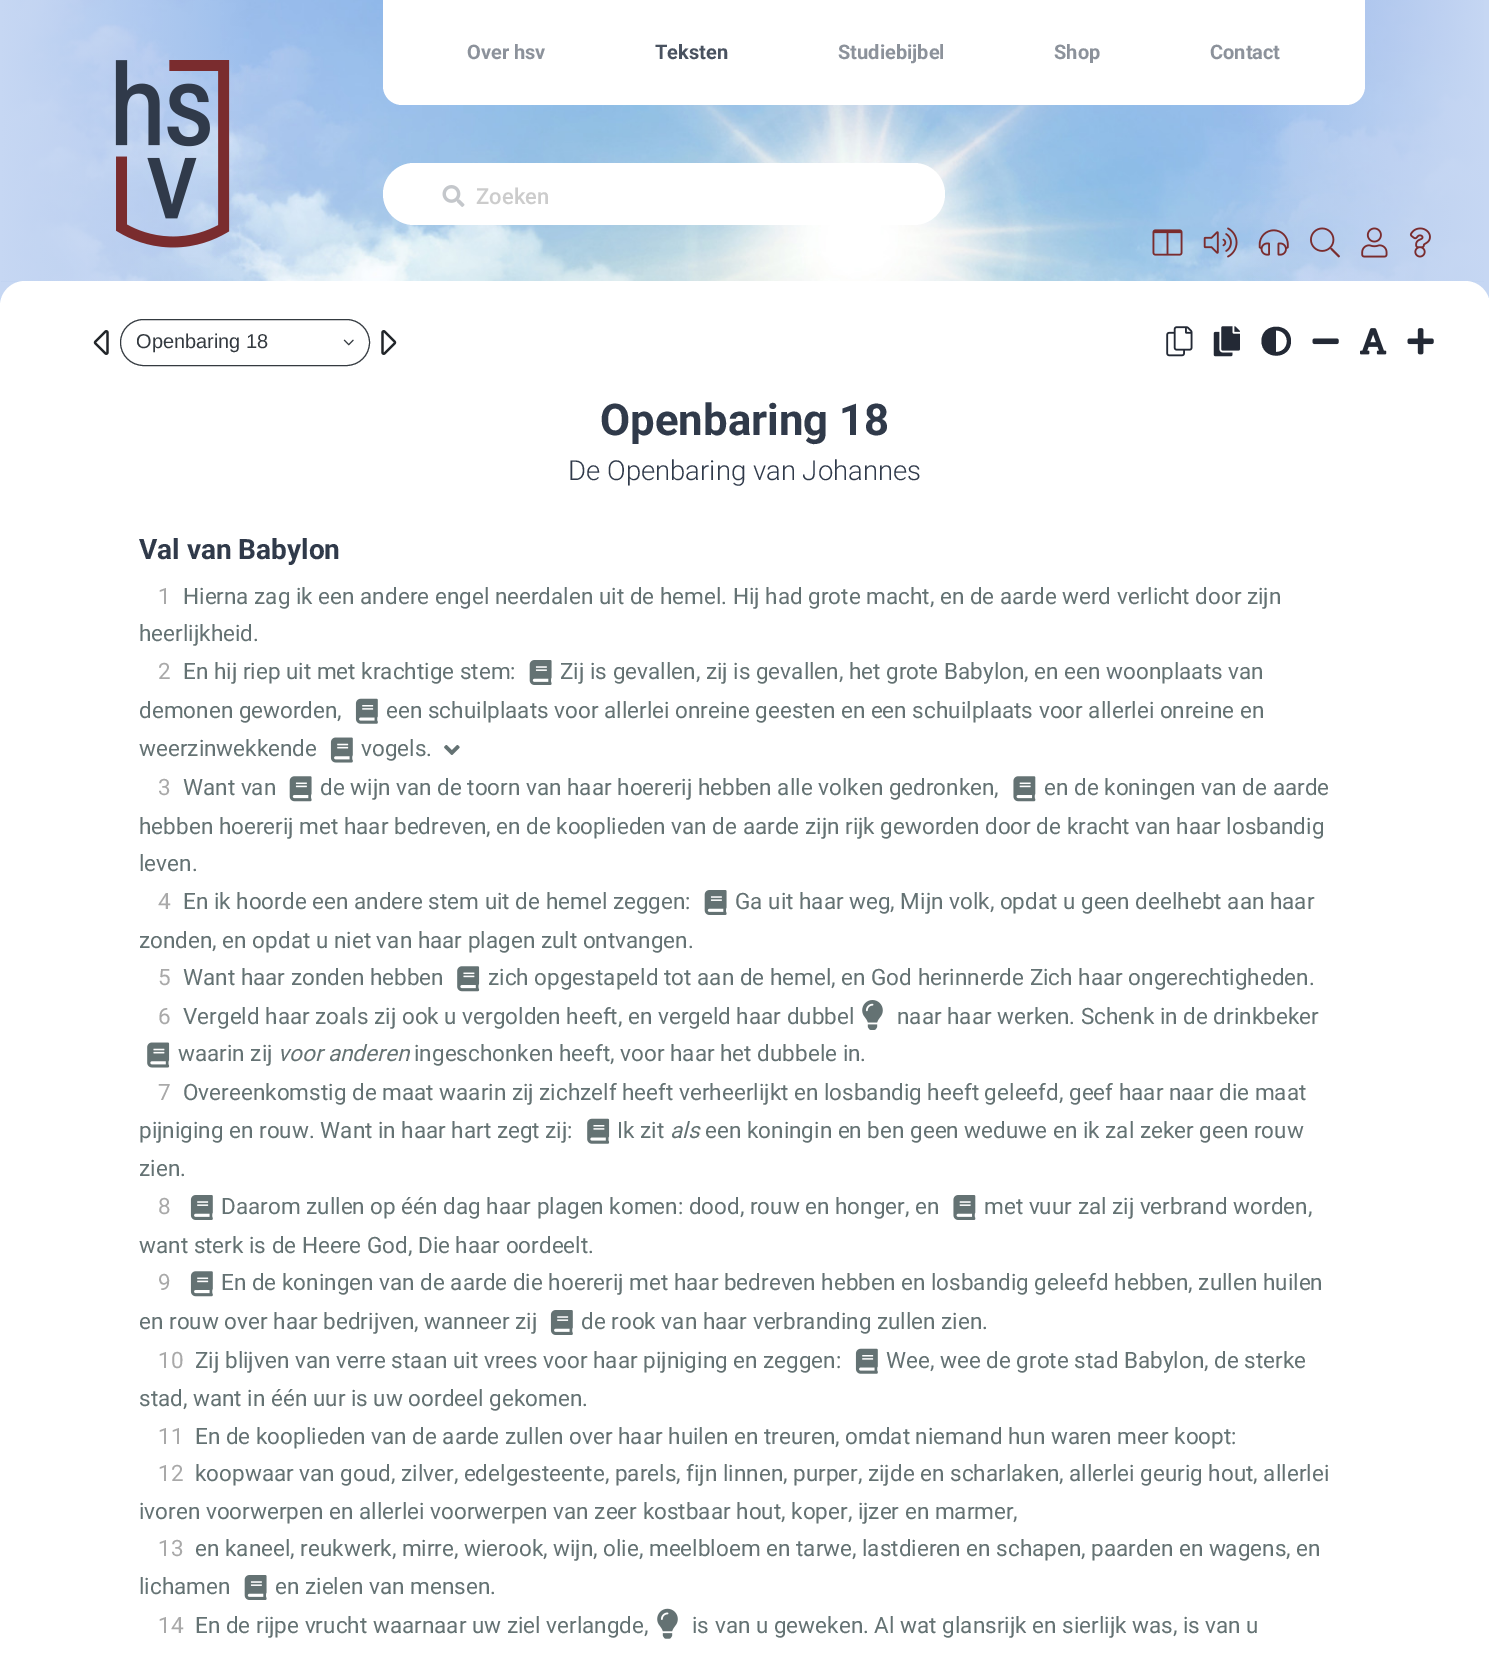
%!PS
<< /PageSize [1489 1655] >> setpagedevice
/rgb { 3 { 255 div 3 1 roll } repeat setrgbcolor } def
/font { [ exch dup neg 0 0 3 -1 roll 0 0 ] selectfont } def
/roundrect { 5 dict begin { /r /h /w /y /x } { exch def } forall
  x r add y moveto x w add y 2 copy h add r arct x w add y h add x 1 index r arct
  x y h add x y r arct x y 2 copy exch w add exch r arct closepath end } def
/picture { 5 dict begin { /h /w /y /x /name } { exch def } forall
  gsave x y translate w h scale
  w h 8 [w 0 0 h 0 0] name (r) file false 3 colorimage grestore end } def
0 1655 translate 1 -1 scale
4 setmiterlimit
198 215 243 rgb
0 0 1489 1655 rectfill
(img/1.rgb) 1 0 1483 282 picture
(img/2.rgb) 115 60 115 188 picture
255 255 255 rgb
383 0 moveto 1365 0 lineto 1365 86 lineto 1365 96.5 1356.5 105 1346 105 curveto 402 105 lineto 391.5 105 383 96.5 383 86 curveto closepath fill
383 163 562 62 31 roundrect fill
(img/3.rgb) 442 185 23 22 picture
0 281 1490 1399 25 roundrect fill
(img/4.rgb) 1152 229 31 27 picture
(img/5.rgb) 1203 227 35 31 picture
(img/6.rgb) 1258 229 31 27 picture
(img/7.rgb) 1310 227 30 31 picture
(img/8.rgb) 1361 227 27 31 picture
(img/9.rgb) 1409 227 22 31 picture
(img/10.rgb) 93 330 16 25 picture
52 58 64 rgb
120.5 319.5 249 46 23 roundrect stroke
(img/11.rgb) 343 339 11 7 picture
(img/12.rgb) 381 330 16 25 picture
(img/13.rgb) 1166 326 27 31 picture
(img/14.rgb) 1213 326 27 31 picture
35 41 53 rgb
1261.5 341 moveto 1261.5 360.5 1291 360.5 1291 341 curveto 1291 322 1261.5 322 1261.5 341 curveto closepath 1276 352 moveto 1276 330.5 lineto 1290.5 330.5 1290.5 352 1276 352 curveto closepath fill
(img/15.rgb) 1312 338 27 7 picture
(img/16.rgb) 1360 328 27 27 picture
(img/17.rgb) 1407 328 27 27 picture
(img/18.rgb) 529 660 23 25 picture
(img/19.rgb) 355 698 23 26 picture
(img/20.rgb) 330 737 23 26 picture
(img/21.rgb) 444 745 16 10 picture
(img/22.rgb) 289 776 23 26 picture
(img/23.rgb) 1013 776 23 26 picture
(img/18.rgb) 704 890 23 25 picture
(img/24.rgb) 457 966 23 26 picture
(img/25.rgb) 862 1000 21 30 picture
(img/26.rgb) 147 1042 23 26 picture
(img/27.rgb) 587 1118 23 26 picture
(img/28.rgb) 190 1195 23 25 picture
(img/29.rgb) 953 1195 23 25 picture
(img/30.rgb) 190 1271 23 26 picture
(img/28.rgb) 550 1310 23 25 picture
(img/19.rgb) 855 1348 23 26 picture
(img/18.rgb) 244 1575 23 25 picture
(img/31.rgb) 657 1608 21 31 picture
/Roboto-Bold 20 font
140 146 155 rgb
467 59 moveto (Over hsv) show
73 82 96 rgb
655 59 moveto (Teksten) show
140 146 155 rgb
[
  [(Studiebijbel) 838 59]
  [(Shop) 1054 59]
  [(Contact) 1210 59]
] { aload pop moveto show } forall
/Roboto-Medium 22 font
204 204 204 rgb
476 204 moveto (Zoeken) show
/LiberationSans-Regular 20 font
52 58 64 rgb
136 348 moveto (Openbaring 18) show
/Roboto-Bold 43.75 font
48 58 74 rgb
600 435 moveto (Openbaring 18) show
/Roboto-Light 27.5 font
568 480 moveto (De Openbaring van Johannes) show
/Roboto-Bold 28 font
139 559 moveto (Val van Babylon) show
/Roboto-Regular 22.5 font
169 169 169 rgb
158 604 moveto (1) show
100 114 115 rgb
183 604 moveto (Hierna zag ik een andere engel neerdalen uit de hemel. Hij had grote macht, en de aarde werd verlicht door zijn) show
139 641 moveto (heerlijkheid.) show
169 169 169 rgb
158 679 moveto (2) show
100 114 115 rgb
[
  [(En hij riep uit met krachtige stem:) 183 679]
  [(Zij is gevallen, zij is gevallen, het grote Babylon, en een woonplaats van) 560 679]
  [(demonen geworden,) 139 718]
  [(een schuilplaats voor allerlei onreine geesten en een schuilplaats voor allerlei onreine en) 386 718]
  [(weerzinwekkende) 139 756]
  [(vogels.) 361 756]
] { aload pop moveto show } forall
169 169 169 rgb
158 795 moveto (3) show
100 114 115 rgb
[
  [(Want van) 183 795]
  [(de wijn van de toorn van haar hoererij hebben alle volken gedronken,) 320 795]
  [(en de koningen van de aarde) 1044 795]
  [(hebben hoererij met haar bedreven, en de kooplieden van de aarde zijn rijk geworden door de kracht van haar losbandig) 139 834]
  [(leven.) 139 871]
] { aload pop moveto show } forall
169 169 169 rgb
158 909 moveto (4) show
100 114 115 rgb
[
  [(En ik hoorde een andere stem uit de hemel zeggen:) 183 909]
  [(Ga uit haar weg, Mijn volk, opdat u geen deelhebt aan haar) 735 909]
  [(zonden, en opdat u niet van haar plagen zult ontvangen.) 139 948]
] { aload pop moveto show } forall
169 169 169 rgb
158 985 moveto (5) show
100 114 115 rgb
183 985 moveto (Want haar zonden hebben) show
488 985 moveto (zich opgestapeld tot aan de hemel, en God herinnerde Zich haar ongerechtigheden.) show
169 169 169 rgb
158 1024 moveto (6) show
100 114 115 rgb
[
  [(Vergeld haar zoals zij ook u vergolden heeft, en vergeld haar dubbel) 183 1024]
  [(naar haar werken. Schenk in de drinkbeker) 897 1024]
  [(waarin zij) 178 1061]
] { aload pop moveto show } forall
/Roboto-Italic 22.5 font
278 1061 moveto (voor anderen) show
/Roboto-Regular 22.5 font
414 1061 moveto (ingeschonken heeft, voor haar het dubbele in.) show
169 169 169 rgb
158 1100 moveto (7) show
100 114 115 rgb
[
  [(Overeenkomstig de maat waarin zij zichzelf heeft verheerlijkt en losbandig heeft geleefd, geef haar naar die maat) 183 1100]
  [(pijniging en rouw. Want in haar hart zegt zij:) 139 1138]
  [(Ik zit) 617 1138]
] { aload pop moveto show } forall
/Roboto-Italic 22.5 font
670 1138 moveto (als) show
/Roboto-Regular 22.5 font
705 1138 moveto (een koningin en ben geen weduwe en ik zal zeker geen rouw) show
139 1176 moveto (zien.) show
169 169 169 rgb
158 1214 moveto (8) show
100 114 115 rgb
[
  [(Daarom zullen op één dag haar plagen komen: dood, rouw en honger, en) 221 1214]
  [(met vuur zal zij verbrand worden,) 984 1214]
  [(want sterk is de Heere God, Die haar oordeelt.) 139 1253]
] { aload pop moveto show } forall
169 169 169 rgb
158 1290 moveto (9) show
100 114 115 rgb
[
  [(En de koningen van de aarde die hoererij met haar bedreven hebben en losbandig geleefd hebben, zullen huilen) 221 1290]
  [(en rouw over haar bedrijven, wanneer zij) 139 1329]
  [(de rook van haar verbranding zullen zien.) 581 1329]
] { aload pop moveto show } forall
169 169 169 rgb
158 1368 moveto (10) show
100 114 115 rgb
[
  [(Zij blijven van verre staan uit vrees voor haar pijniging en zeggen:) 195 1368]
  [(Wee, wee de grote stad Babylon, de sterke) 886 1368]
  [(stad, want in één uur is uw oordeel gekomen.) 139 1406]
] { aload pop moveto show } forall
169 169 169 rgb
158 1444 moveto (11) show
100 114 115 rgb
195 1444 moveto (En de kooplieden van de aarde zullen over haar huilen en treuren, omdat niemand hun waren meer koopt:) show
169 169 169 rgb
158 1481 moveto (12) show
100 114 115 rgb
195 1481 moveto (koopwaar van goud, zilver, edelgesteente, parels, fijn linnen, purper, zijde en scharlaken, allerlei geurig hout, allerlei) show
139 1519 moveto (ivoren voorwerpen en allerlei voorwerpen van zeer kostbaar hout, koper, ijzer en marmer,) show
169 169 169 rgb
158 1556 moveto (13) show
100 114 115 rgb
[
  [(en kaneel, reukwerk, mirre, wierook, wijn, olie, meelbloem en tarwe, lastdieren en schapen, paarden en wagens, en) 195 1556]
  [(lichamen) 139 1594]
  [(en zielen van mensen.) 275 1594]
] { aload pop moveto show } forall
169 169 169 rgb
158 1633 moveto (14) show
100 114 115 rgb
195 1633 moveto (En de rijpe vrucht waarnaar uw ziel verlangde,) show
692 1633 moveto (is van u geweken. Al wat glansrijk en sierlijk was, is van u) show
showpage
